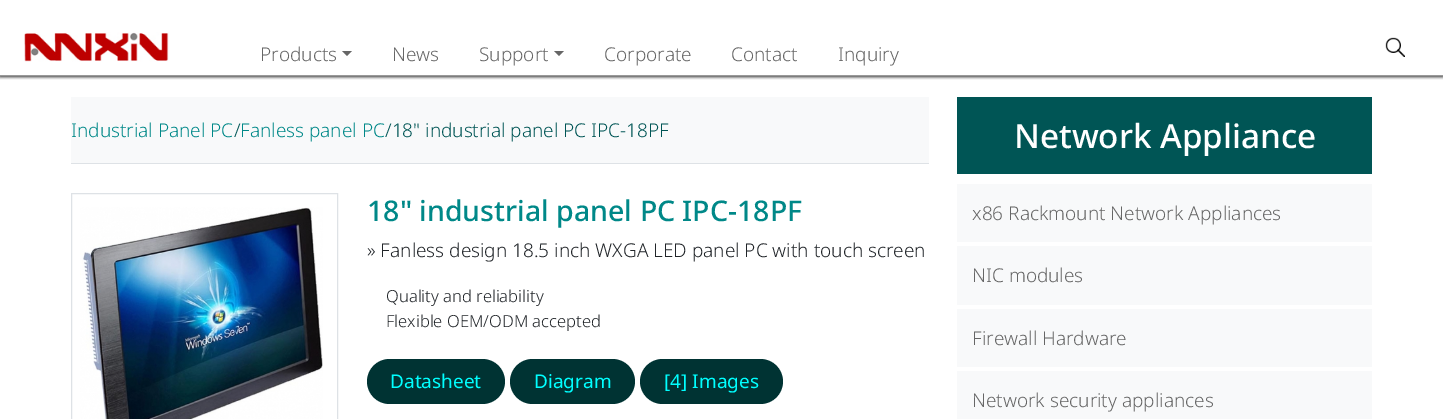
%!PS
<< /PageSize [1443 419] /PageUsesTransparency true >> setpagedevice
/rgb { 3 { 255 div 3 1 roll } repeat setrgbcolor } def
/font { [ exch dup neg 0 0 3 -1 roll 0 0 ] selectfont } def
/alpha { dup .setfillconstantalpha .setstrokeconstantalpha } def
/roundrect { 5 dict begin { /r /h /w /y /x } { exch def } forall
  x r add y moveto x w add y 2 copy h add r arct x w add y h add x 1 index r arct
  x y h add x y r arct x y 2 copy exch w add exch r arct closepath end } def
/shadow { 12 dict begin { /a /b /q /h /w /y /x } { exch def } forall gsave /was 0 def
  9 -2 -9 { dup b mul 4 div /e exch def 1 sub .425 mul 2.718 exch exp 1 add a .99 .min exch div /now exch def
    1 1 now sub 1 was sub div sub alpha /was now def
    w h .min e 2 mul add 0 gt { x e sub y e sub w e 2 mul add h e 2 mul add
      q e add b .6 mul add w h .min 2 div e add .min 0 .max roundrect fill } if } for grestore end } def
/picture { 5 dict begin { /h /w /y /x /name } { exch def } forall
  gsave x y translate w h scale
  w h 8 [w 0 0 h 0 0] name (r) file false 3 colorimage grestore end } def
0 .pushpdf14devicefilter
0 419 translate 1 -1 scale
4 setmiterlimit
255 255 255 rgb
0 0 1443 419 rectfill
gsave
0 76 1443 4 rectclip
51 51 51 rgb
0 1 1443 76 0 1.5 1 shadow
grestore
153 153 153 rgb
0 75 1443 1 rectfill
(img/1.rgb) 24 32 145 30 picture
102 102 102 rgb
342 51 moveto 352 51 lineto 347 56 lineto closepath fill
554 51 moveto 564 51 lineto 559 56 lineto closepath fill
(img/2.rgb) 1385 37 20 20 picture
248 249 250 rgb
71 97 858 66 rectfill
222 226 230 rgb
71 163 858 1 rectfill
71.5 193.5 266 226 rectstroke
(img/3.rgb) 80 207 243 212 picture
0 51 51 rgb
367 359 138 45 22.5 roundrect fill
510 359 125 45 22.5 roundrect fill
640 359 143 45 22.5 roundrect fill
[
  [957 97 415 77 0 85 85]
  [957 184 415 58 248 249 250]
  [957 246 415 59 248 249 250]
  [957 309 415 58 248 249 250]
  [957 371 415 48 248 249 250]
] { aload pop rgb rectfill } forall
/NotoSans-Light 19 font
102 102 102 rgb
[
  [(Products) 260 61]
  [(News) 392 61]
  [(Support) 479 61]
  [(Corporate) 604 61]
  [(Contact) 731 61]
  [(Inquiry) 838 61]
] { aload pop moveto show } forall
0 136 136 rgb
71 137 moveto (Industrial Panel PC) show
0 85 85 rgb
234 137 moveto (/) show
0 136 136 rgb
240 137 moveto (Fanless panel PC) show
0 85 85 rgb
385 137 moveto (/18" industrial panel PC IPC-18PF) show
/NotoSans-Medium 28.5 font
0 136 136 rgb
367 221 moveto (18" industrial panel PC IPC-18PF) show
/NotoSans-Light 19 font
33 37 41 rgb
367 257 moveto (» Fanless design 18.5 inch WXGA LED panel PC with touch screen) show
/NotoSans-Light 16.6 font
386 302 moveto (Quality and reliability) show
386 327 moveto (Flexible OEM/ODM accepted) show
/NotoSans-Regular 19 font
0 255 255 rgb
[
  [(Datasheet) 390 388]
  [(Diagram) 534 388]
  [([4] Images) 664 388]
] { aload pop moveto show } forall
/NotoSans-Medium 33.25 font
255 255 255 rgb
1014 148 moveto (Network Appliance) show
/NotoSans-Light 19 font
102 102 102 rgb
[
  [(x86 Rackmount Network Appliances) 972 220]
  [(NIC modules) 972 282]
  [(Firewall Hardware) 972 345]
  [(Network security appliances) 972 407]
] { aload pop moveto show } forall
.poppdf14devicefilter showpage
